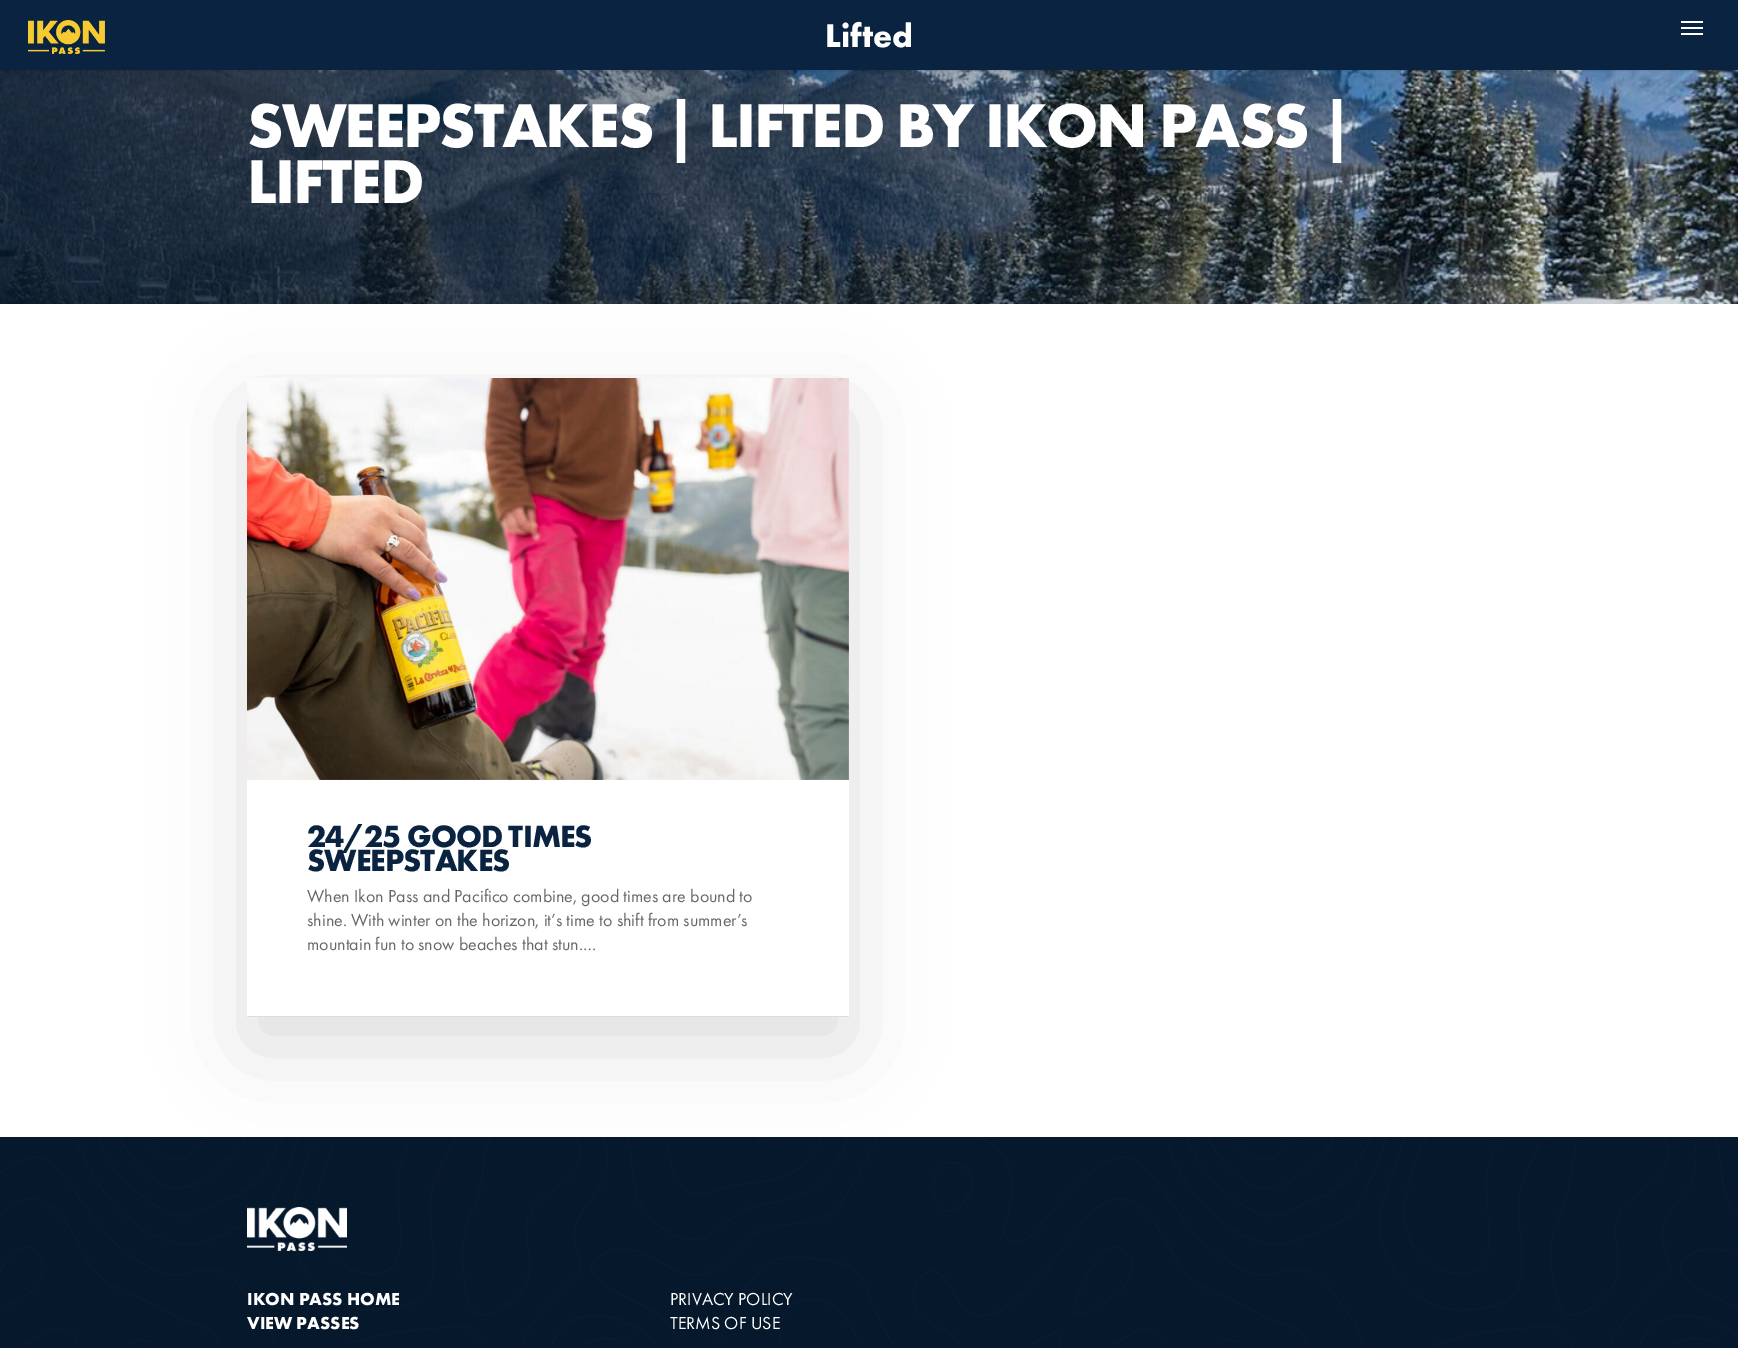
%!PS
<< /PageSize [1738 1348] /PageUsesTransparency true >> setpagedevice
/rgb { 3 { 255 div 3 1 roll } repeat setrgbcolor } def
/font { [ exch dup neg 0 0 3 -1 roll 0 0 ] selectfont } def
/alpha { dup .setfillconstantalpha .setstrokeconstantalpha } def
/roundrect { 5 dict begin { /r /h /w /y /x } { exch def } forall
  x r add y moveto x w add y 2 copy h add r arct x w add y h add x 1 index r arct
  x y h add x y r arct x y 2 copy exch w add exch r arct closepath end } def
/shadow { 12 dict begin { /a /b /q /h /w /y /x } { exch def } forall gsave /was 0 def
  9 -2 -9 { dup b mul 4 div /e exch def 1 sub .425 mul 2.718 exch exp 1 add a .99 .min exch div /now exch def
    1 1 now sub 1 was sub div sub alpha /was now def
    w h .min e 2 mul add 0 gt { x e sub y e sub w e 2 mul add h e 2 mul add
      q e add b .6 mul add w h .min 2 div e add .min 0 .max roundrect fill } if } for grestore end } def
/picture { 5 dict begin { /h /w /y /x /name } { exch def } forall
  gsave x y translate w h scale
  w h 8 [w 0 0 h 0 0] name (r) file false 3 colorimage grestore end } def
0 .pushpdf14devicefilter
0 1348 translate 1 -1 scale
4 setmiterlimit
255 255 255 rgb
0 0 1738 1348 rectfill
(img/2.rgb) 0 70 1738 234 picture
0 0 0 rgb
0 0 1738 70 0 1.5 0.22 shadow
9 35 64 rgb
0 0 1738 70 rectfill
(img/1.rgb) 28 20 77 34 picture
[
  [1681 21 22 2 255 255 255]
  [1681 33 22 2 255 255 255]
  [1681 27 22 2 255 255 255]
] { aload pop rgb rectfill } forall
gsave
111 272 moveto 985 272 lineto 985 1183 lineto 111 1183 lineto closepath 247 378 moveto 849 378 lineto 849 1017 lineto 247 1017 lineto closepath eoclip newpath
0 0 0 rgb
247 408 602 639 0 45 0.14 shadow
grestore
221 221 221 rgb
247 1016 602 1 rectfill
(img/3.rgb) 247 378 602 402 picture
(img/4.rgb) 0 1137 1738 211 picture
(img/5.rgb) 247 1207 100 44 picture
/FuturaPT-Bold 34 font
255 255 255 rgb
825 47 moveto (Lifted) show
/FuturaPT-Bold 64 font
247 147 moveto -2 0 (SWEEPSTAKES | LIFTED BY IKON PASS |) ashow
247 203 moveto -2 0 (LIFTED) ashow
/FuturaPT-Bold 32 font
9 35 64 rgb
307 847 moveto -1 0 (24/25 GOOD TIMES) ashow
307 871 moveto -1 0 (SWEEPSTAKES) ashow
/FuturaPT-Regular 18 font
103 103 103 rgb
[
  [(When Ikon Pass and Pacifico combine, good times are bound to) 307 902]
  [(shine. With winter on the horizon, it’s time to shift from summer’s) 307 926]
  [(mountain fun to snow beaches that stun.…) 307 950]
] { aload pop moveto show } forall
255 255 255 rgb
358 823 5 1 rectfill
/FuturaPT-Bold 18 font
247 1305 moveto (IKON PASS HOME) show
247 1329 moveto (VIEW PASSES) show
/FuturaPT-Regular 18 font
670 1305 moveto (PRIVACY POLICY) show
670 1329 moveto (TERMS OF USE) show
.poppdf14devicefilter showpage
